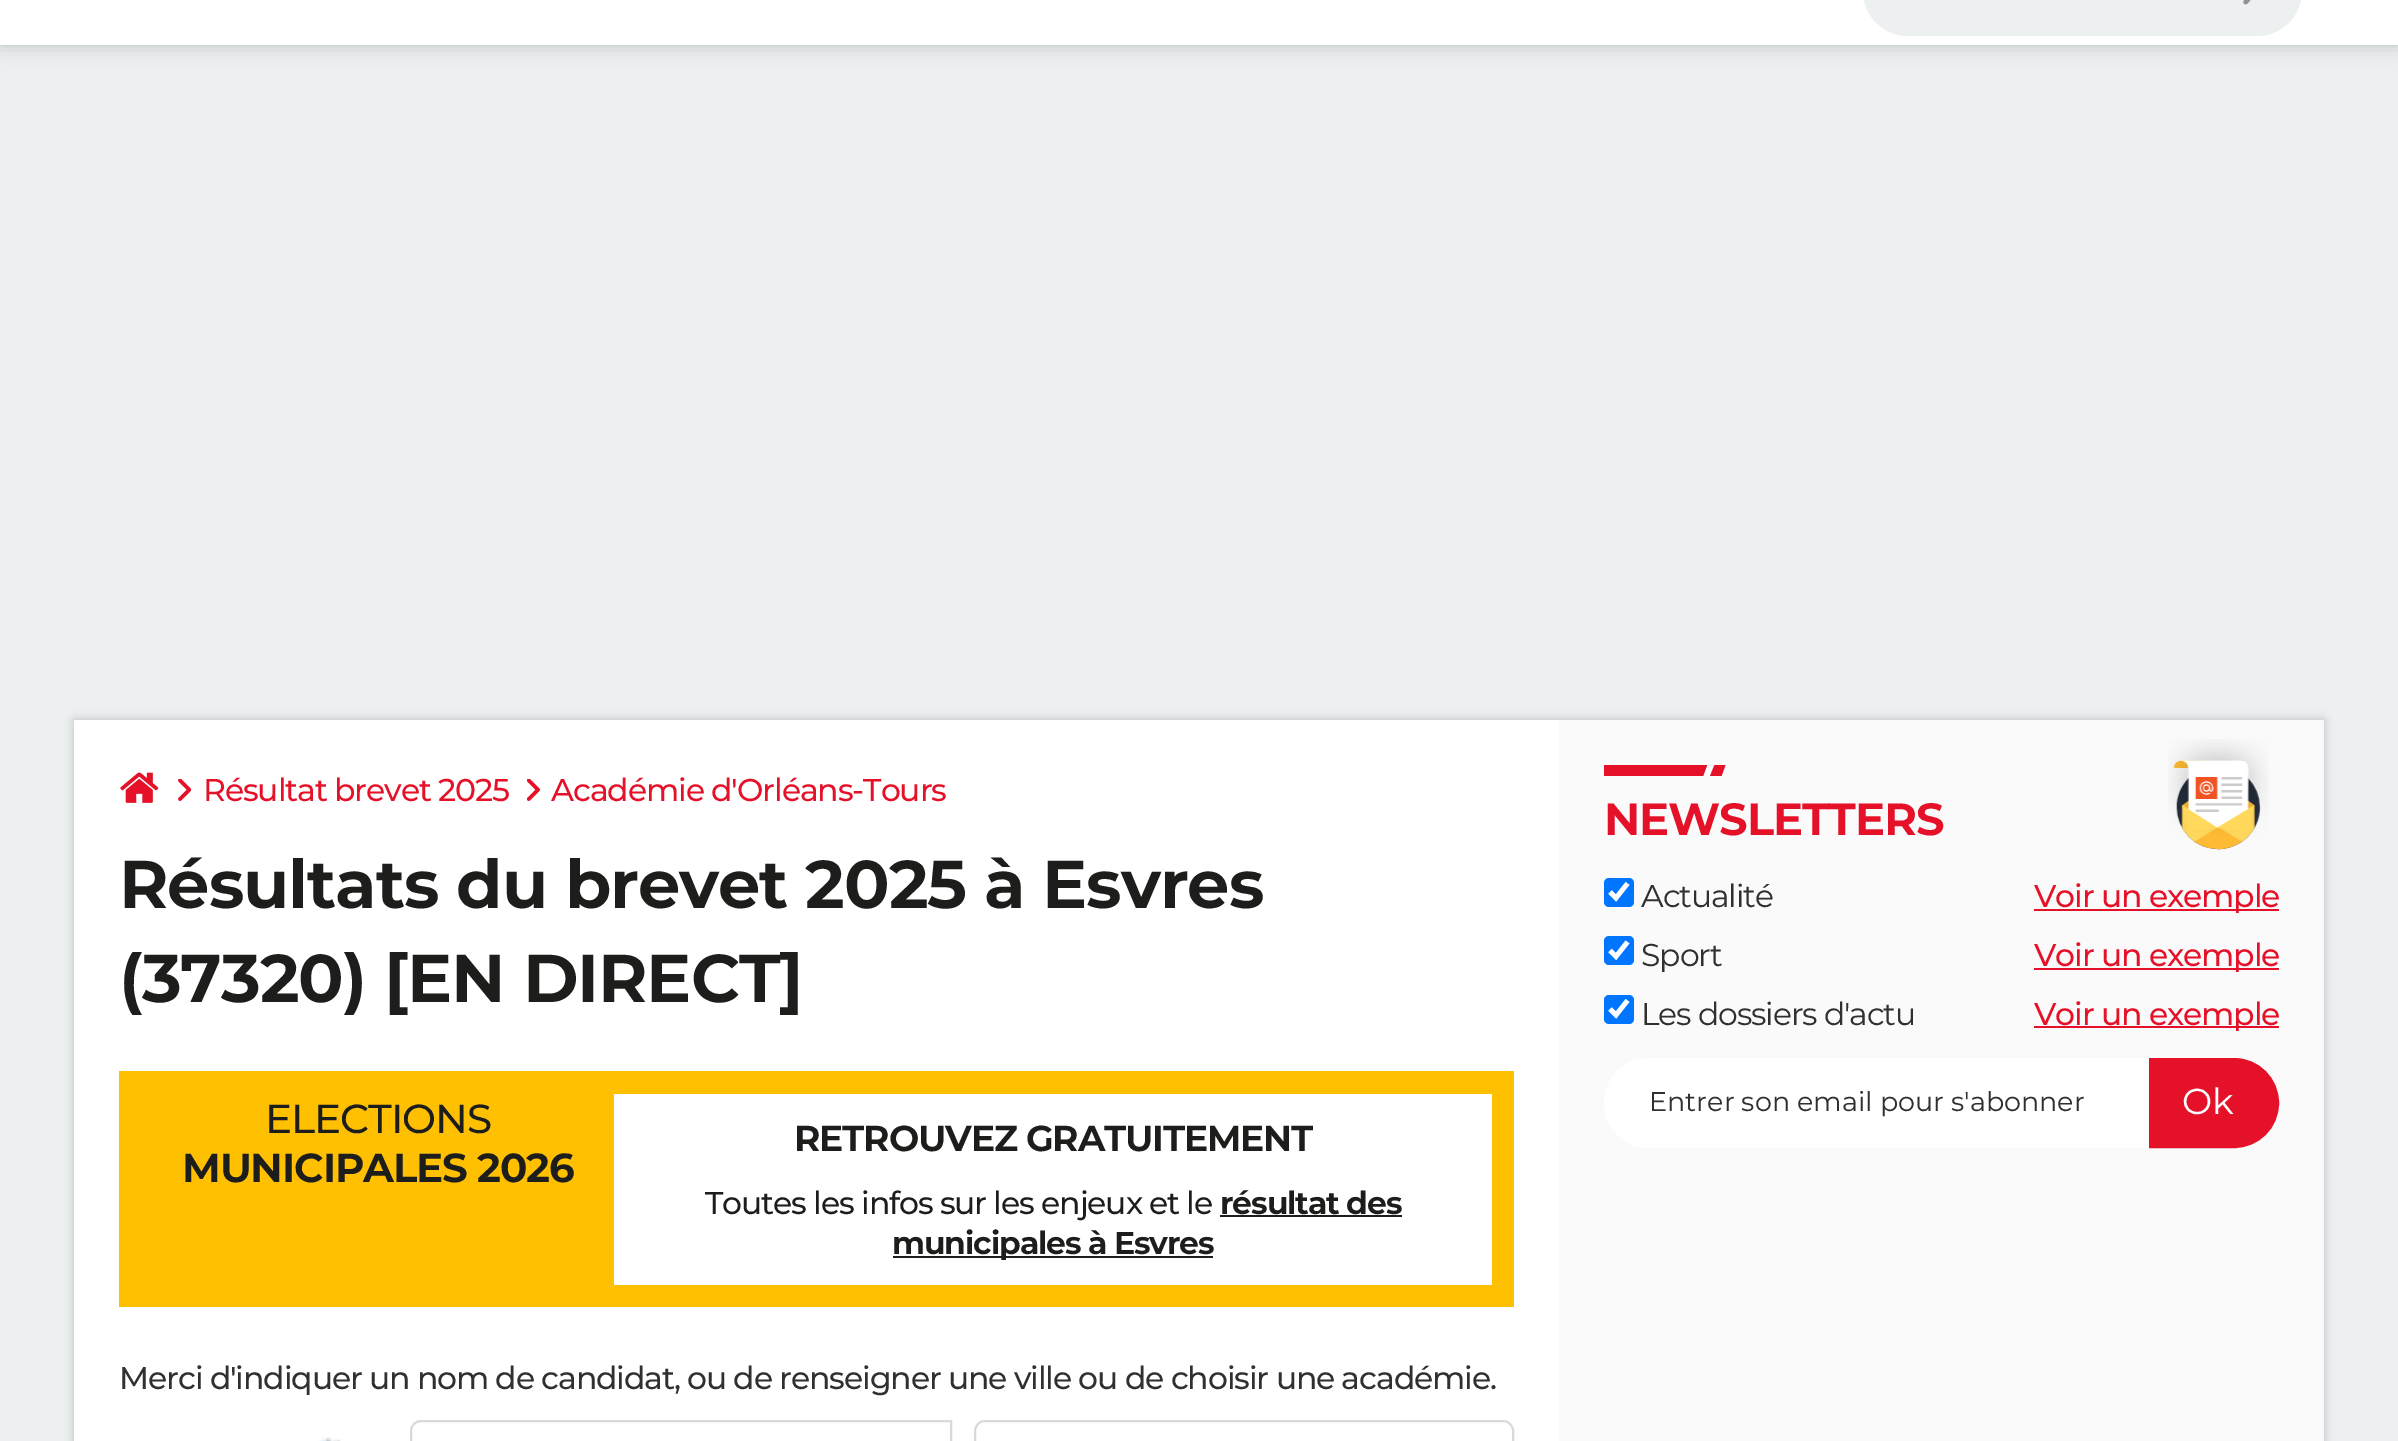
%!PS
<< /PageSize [2398 1441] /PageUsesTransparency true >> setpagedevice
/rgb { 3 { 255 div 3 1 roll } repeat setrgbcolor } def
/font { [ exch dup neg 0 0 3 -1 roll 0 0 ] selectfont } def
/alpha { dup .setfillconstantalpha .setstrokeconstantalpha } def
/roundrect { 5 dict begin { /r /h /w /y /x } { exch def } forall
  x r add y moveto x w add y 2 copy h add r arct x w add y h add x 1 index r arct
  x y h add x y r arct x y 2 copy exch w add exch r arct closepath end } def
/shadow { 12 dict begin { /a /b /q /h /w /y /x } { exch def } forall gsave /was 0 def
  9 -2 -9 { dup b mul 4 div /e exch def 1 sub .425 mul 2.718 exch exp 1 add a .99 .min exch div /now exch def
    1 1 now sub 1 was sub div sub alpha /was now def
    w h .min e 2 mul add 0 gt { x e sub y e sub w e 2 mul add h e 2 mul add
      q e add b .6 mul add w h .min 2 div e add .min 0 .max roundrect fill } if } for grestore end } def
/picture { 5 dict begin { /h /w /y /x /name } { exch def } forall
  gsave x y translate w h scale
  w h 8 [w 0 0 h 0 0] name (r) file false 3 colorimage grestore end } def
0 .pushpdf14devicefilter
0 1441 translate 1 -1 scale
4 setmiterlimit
237 240 240 rgb
0 0 2398 1441 rectfill
0 0 0 rgb
0 -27 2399 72 0 9 0.2 shadow
255 255 255 rgb
0 0 2398 45 rectfill
237 240 240 rgb
1863 -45 439 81 45 roundrect fill
(img/1.rgb) 2243 0 8 5 picture
0 0 0 rgb
74 720 2250 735 0 4.5 0.2 shadow
250 250 250 rgb
1559 720 765 721 rectfill
255 255 255 rgb
74 720 1485 721 rectfill
(img/2.rgb) 120 772 39 31 picture
(img/3.rgb) 178 779 13 22 picture
(img/4.rgb) 527 779 13 22 picture
[
  [119 1071 1395 236 255 192 1]
  [614 1094 878 191 255 255 255]
  [1220 1215 182 2 29 29 27]
  [893 1256 320 2 29 29 27]
] { aload pop rgb rectfill } forall
(img/5.rgb) 319 1437 22 4 picture
217 217 217 rgb
2 setlinewidth
421 1421 moveto 951 1421 lineto 951 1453 lineto 421 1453 lineto 415.5 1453 411 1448.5 411 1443 curveto 411 1431 lineto 411 1425.5 415.5 1421 421 1421 curveto closepath stroke
975 1421 538 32 10 roundrect stroke
228 17 41 rgb
1604 765 104 11 rectfill
255 255 255 rgb
1707.5 765 moveto 1725.5 765 lineto 1721.5 776 lineto 1703.5 776 lineto closepath fill
228 17 41 rgb
1714.5 765 moveto 1725.5 765 lineto 1721.5 776 lineto 1710 776 lineto closepath fill
(img/6.rgb) 2168 739 101 111 picture
0 117 255 rgb
1604 878 30 29 5 roundrect fill
255 255 255 rgb
4.7 setlinewidth
1610 892 moveto 1616 898 lineto 1627.5 883.5 lineto stroke
228 17 41 rgb
2034 909 245 2 rectfill
0 117 255 rgb
1604 936 30 29 5 roundrect fill
255 255 255 rgb
1610 950.5 moveto 1616 956.5 lineto 1627.5 942 lineto stroke
228 17 41 rgb
2034 968 245 2 rectfill
0 117 255 rgb
1604 995 30 29 5 roundrect fill
255 255 255 rgb
1610 1009 moveto 1616 1015 lineto 1627.5 1000.5 lineto stroke
228 17 41 rgb
2034 1026 245 2 rectfill
255 255 255 rgb
1604 1058 675 90 45 roundrect fill
228 17 41 rgb
2151.5 1060.5 moveto 2234 1060.5 lineto 2257.5 1060.5 2276.5 1079.5 2276.5 1103 curveto 2276.5 1126.5 2257.5 1145.5 2234 1145.5 curveto 2151.5 1145.5 lineto closepath gsave fill grestore
5 setlinewidth
stroke
/Montserrat-Medium 31.5 font
203 801 moveto -1.12 0 (Résultat brevet 2025) ashow
551 801 moveto -1.12 0 (Académie d'Orléans-Tours) ashow
/Montserrat-Bold 67.5 font
29 29 27 rgb
119 908 moveto -1.12 0 (Résultats du brevet 2025 à Esvres) ashow
119 1002 moveto -1.12 0 (\(37320\) [EN DIRECT]) ashow
/Montserrat-Medium 40.5 font
265 1133 moveto -1.12 0 (ELECTIONS) ashow
/Montserrat-Bold 40.5 font
182 1182 moveto -1.12 0 (MUNICIPALES 2026) ashow
/Montserrat-Bold 36 font
794 1151 moveto -1.12 0 (RETROUVEZ GRATUITEMENT) ashow
/Montserrat-Medium 31.5 font
705 1214 moveto -1.12 0 (Toutes les infos sur les enjeux et le) ashow
/Montserrat-Bold 31.5 font
1220 1214 moveto -1.12 0 (résultat des) ashow
892 1254 moveto -1.12 0 (municipales à Esvres) ashow
/Montserrat-Medium 31.5 font
48 48 48 rgb
119 1389 moveto -1.12 0 (Merci d'indiquer un nom de candidat, ou de renseigner une ville ou de choisir une académie.) ashow
/Montserrat-Bold 45 font
228 17 41 rgb
1604 835 moveto -1.12 0 (NEWSLETTERS) ashow
/Montserrat-Regular 31.5 font
48 48 48 rgb
1641 907 moveto -1.12 0 (Actualité) ashow
/Montserrat-Medium 31.5 font
228 17 41 rgb
2034 907 moveto -1.12 0 (Voir un exemple) ashow
/Montserrat-Regular 31.5 font
48 48 48 rgb
1641 966 moveto -1.12 0 (Sport) ashow
/Montserrat-Medium 31.5 font
228 17 41 rgb
2034 966 moveto -1.12 0 (Voir un exemple) ashow
/Montserrat-Regular 31.5 font
48 48 48 rgb
1641 1025 moveto -1.12 0 (Les dossiers d'actu) ashow
/Montserrat-Medium 31.5 font
228 17 41 rgb
2034 1025 moveto -1.12 0 (Voir un exemple) ashow
/Montserrat-Regular 27 font
48 48 48 rgb
1649 1111 moveto (Entrer son email pour s'abonner) show
/Montserrat-Regular 36 font
255 255 255 rgb
2182 1114 moveto (Ok) show
.poppdf14devicefilter showpage
